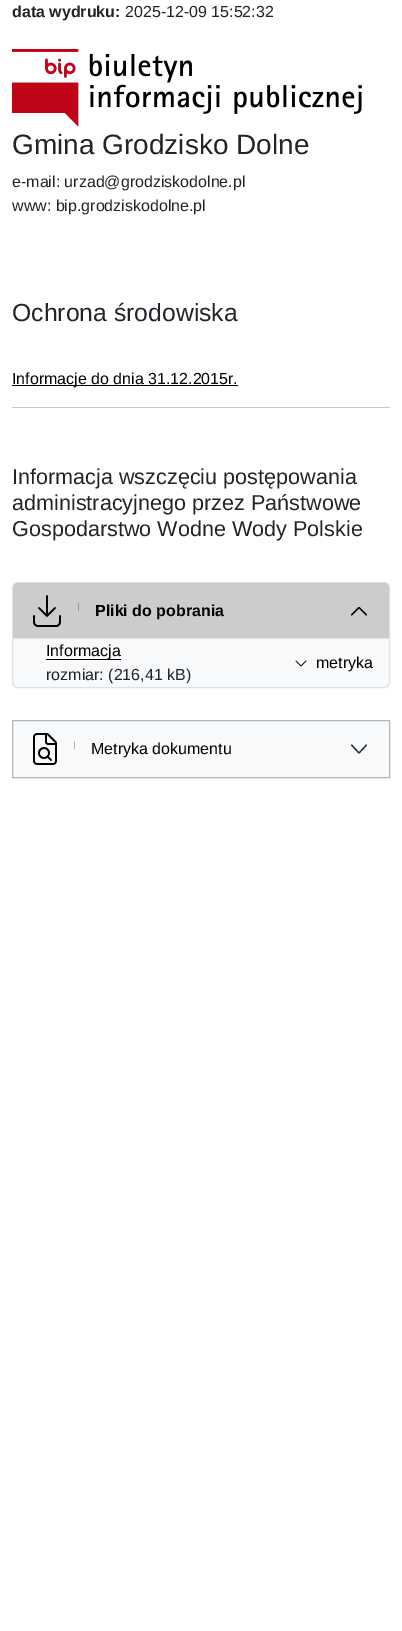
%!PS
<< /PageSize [402 1631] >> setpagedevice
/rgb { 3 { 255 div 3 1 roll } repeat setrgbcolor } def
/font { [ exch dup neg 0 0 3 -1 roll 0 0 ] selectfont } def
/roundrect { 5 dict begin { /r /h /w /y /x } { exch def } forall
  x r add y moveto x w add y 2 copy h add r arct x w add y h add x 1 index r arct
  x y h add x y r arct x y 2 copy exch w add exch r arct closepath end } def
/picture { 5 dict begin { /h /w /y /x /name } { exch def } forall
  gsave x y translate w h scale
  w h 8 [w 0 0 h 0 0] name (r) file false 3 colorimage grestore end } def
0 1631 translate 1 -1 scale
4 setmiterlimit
255 255 255 rgb
0 0 402 1631 rectfill
(img/1.rgb) 12 49 350 78 picture
0 0 0 rgb
12 385 226 1 rectfill
200 201 202 rgb
12 407 378 1 rectfill
248 249 250 rgb
12.5 582.5 377 105 5.5 roundrect gsave fill grestore
222 226 230 rgb
stroke
204 204 204 rgb
18 583 moveto 384 583 lineto 387 583 389 585 389 588 curveto 389 639 lineto 13 639 lineto 13 588 lineto 13 585 15 583 18 583 curveto closepath fill
222 226 230 rgb
13 638 376 1 rectfill
(img/2.rgb) 33 595 28 32 picture
0 0 0 rgb
78 603 moveto 78.5 603 78 609.5 78 611 curveto 78 619 lineto closepath fill
1.2 setlinewidth
1 setlinecap
1 setlinejoin
366.5 615 moveto 359 607.5 lineto 351.5 615 lineto stroke
46 659 75 1 rectfill
(img/3.rgb) 295 660 12 7 picture
248 249 250 rgb
12.5 720.5 moveto 389.5 720.5 lineto 389.5 777.5 lineto 12.5 777.5 lineto closepath gsave fill grestore
173 181 189 rgb
1 setlinewidth
0 setlinecap
0 setlinejoin
stroke
(img/4.rgb) 33 733 24 32 picture
0 0 0 rgb
74 741 moveto 74.5 741 74 747.5 74 749 curveto 74 757 lineto closepath fill
33 37 41 rgb
1.2 setlinewidth
1 setlinecap
1 setlinejoin
351.5 745 moveto 359 753 lineto 366.5 745 lineto stroke
/LiberationSans-Bold 16 font
12 17 moveto (data wydruku:) show
/LiberationSans-Regular 16 font
125 17 moveto (2025-12-09 15:52:32) show
/LiberationSans-Regular 28 font
12 154 moveto (Gmina Grodzisko Dolne) show
/LiberationSans-Regular 16 font
12 187 moveto (e-mail: urzad@grodziskodolne.pl) show
12 211 moveto (www: bip.grodziskodolne.pl) show
/LiberationSans-Regular 24.75 font
12 321 moveto (Ochrona środowiska) show
/LiberationSans-Regular 16 font
0 0 0 rgb
12 384 moveto (Informacje do dnia 31.12.2015r.) show
/LiberationSans-Regular 21.6 font
33 37 41 rgb
[
  [(Informacja wszczęciu postępowania) 12 484]
  [(administracyjnego przez Państwowe) 12 510]
  [(Gospodarstwo Wodne Wody Polskie) 12 536]
] { aload pop moveto show } forall
/LiberationSans-Bold 16 font
0 0 0 rgb
95 616 moveto (Pliki do pobrania) show
/LiberationSans-Regular 16 font
46 656 moveto (Informacja) show
33 37 41 rgb
46 680 moveto (rozmiar: \(216,41 kB\)) show
0 0 0 rgb
316 668 moveto (metryka) show
91 754 moveto (Metryka dokumentu) show
showpage
